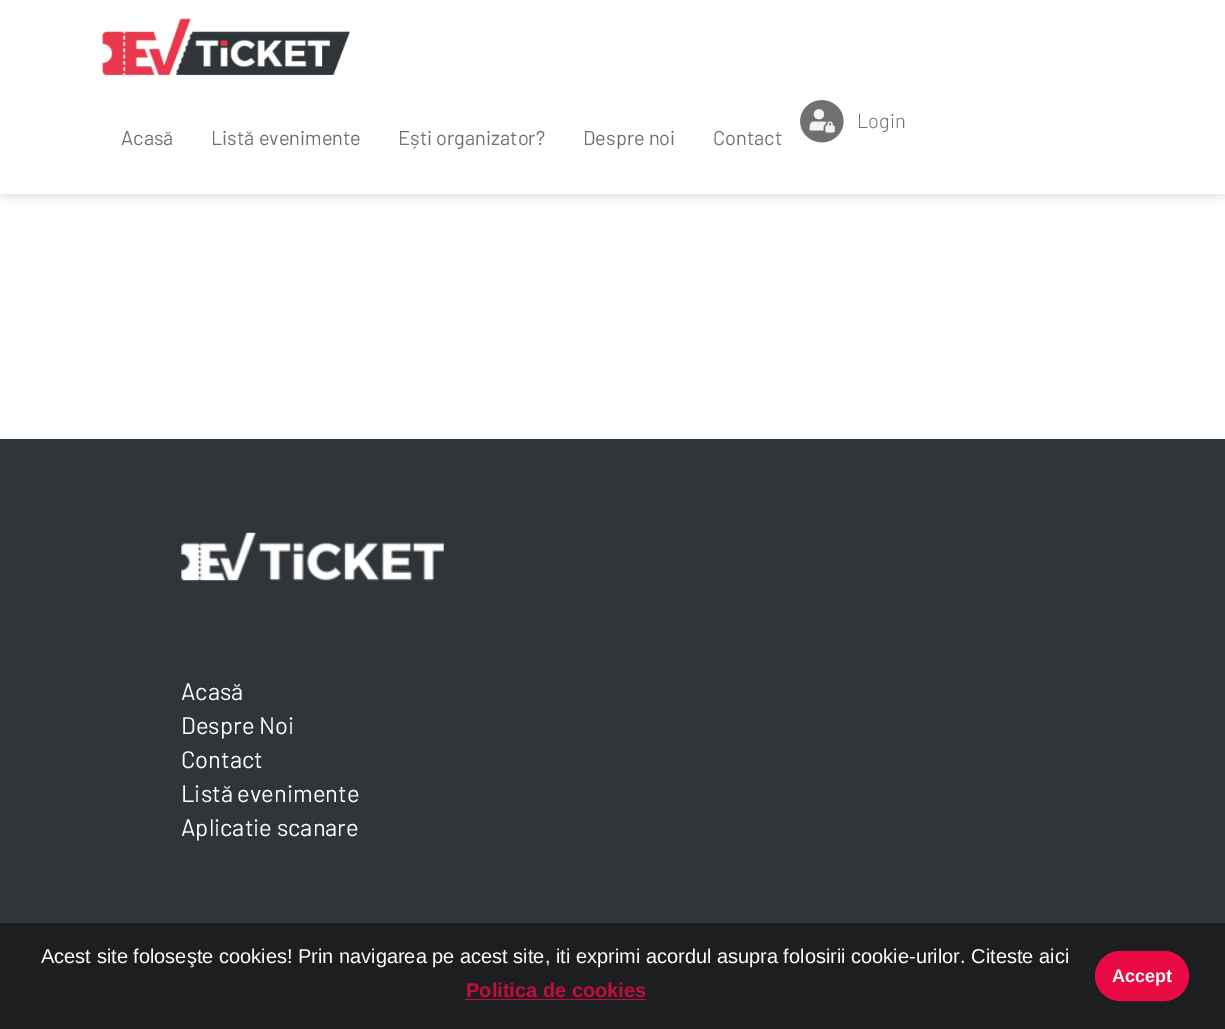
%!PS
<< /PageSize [1225 1029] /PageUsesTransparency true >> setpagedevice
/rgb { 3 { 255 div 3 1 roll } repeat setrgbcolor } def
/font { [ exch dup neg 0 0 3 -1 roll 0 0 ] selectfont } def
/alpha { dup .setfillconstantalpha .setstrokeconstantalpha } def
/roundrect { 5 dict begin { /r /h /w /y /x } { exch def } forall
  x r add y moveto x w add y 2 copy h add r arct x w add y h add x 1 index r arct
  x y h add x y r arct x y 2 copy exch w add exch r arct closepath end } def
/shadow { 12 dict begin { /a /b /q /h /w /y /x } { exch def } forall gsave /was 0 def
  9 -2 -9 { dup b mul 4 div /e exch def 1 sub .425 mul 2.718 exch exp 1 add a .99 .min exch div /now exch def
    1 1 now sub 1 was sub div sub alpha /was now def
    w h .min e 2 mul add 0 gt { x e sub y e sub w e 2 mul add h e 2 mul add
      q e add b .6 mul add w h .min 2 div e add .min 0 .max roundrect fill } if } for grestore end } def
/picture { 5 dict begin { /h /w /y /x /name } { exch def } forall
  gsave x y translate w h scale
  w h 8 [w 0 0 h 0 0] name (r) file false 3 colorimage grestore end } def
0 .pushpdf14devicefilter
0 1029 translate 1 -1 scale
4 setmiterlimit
255 255 255 rgb
0 0 1225 1029 rectfill
0 0 0 rgb
3 6 1220 189 0 6 0.15 shadow
255 255 255 rgb
0 0 1225 194 rectfill
(img/1.rgb) 102 18 248 57 picture
(img/2.rgb) 800 100 44 43 picture
48 53 58 rgb
0 439 1225 484 rectfill
(img/3.rgb) 181 532 263 49 picture
28 30 32 rgb
0 923 1225 106 rectfill
193 14 60 rgb
465 999 181 1 rectfill
234 10 67 rgb
1096.5 952.5 91 47 23.5 roundrect gsave fill grestore
3 setlinewidth
stroke
/Barlow-Light 20 font
111 112 113 rgb
857 128 moveto (Login) show
/Barlow-Regular 20 font
[
  [(Acasă) 121 145]
  [(Listă evenimente) 211 145]
  [(Ești organizator?) 398 145]
  [(Despre noi) 583 145]
  [(Contact) 713 145]
] { aload pop moveto show } forall
/Barlow-Regular 23.75 font
255 255 255 rgb
[
  [(Acasă) 181 700]
  [(Despre Noi) 181 734]
  [(Contact) 181 768]
  [(Listă evenimente) 181 802]
  [(Aplicatie scanare) 181 836]
] { aload pop moveto show } forall
/LiberationSans-Regular 20 font
41 963 moveto (Acest site foloseşte cookies! Prin navigarea pe acest site, iti exprimi acordul asupra folosirii cookie-urilor. Citeste aici) show
/LiberationSans-Bold 20 font
193 14 60 rgb
466 997 moveto (Politica de cookies) show
/LiberationSans-Bold 18 font
255 255 255 rgb
1112 982 moveto (Accept) show
.poppdf14devicefilter showpage
